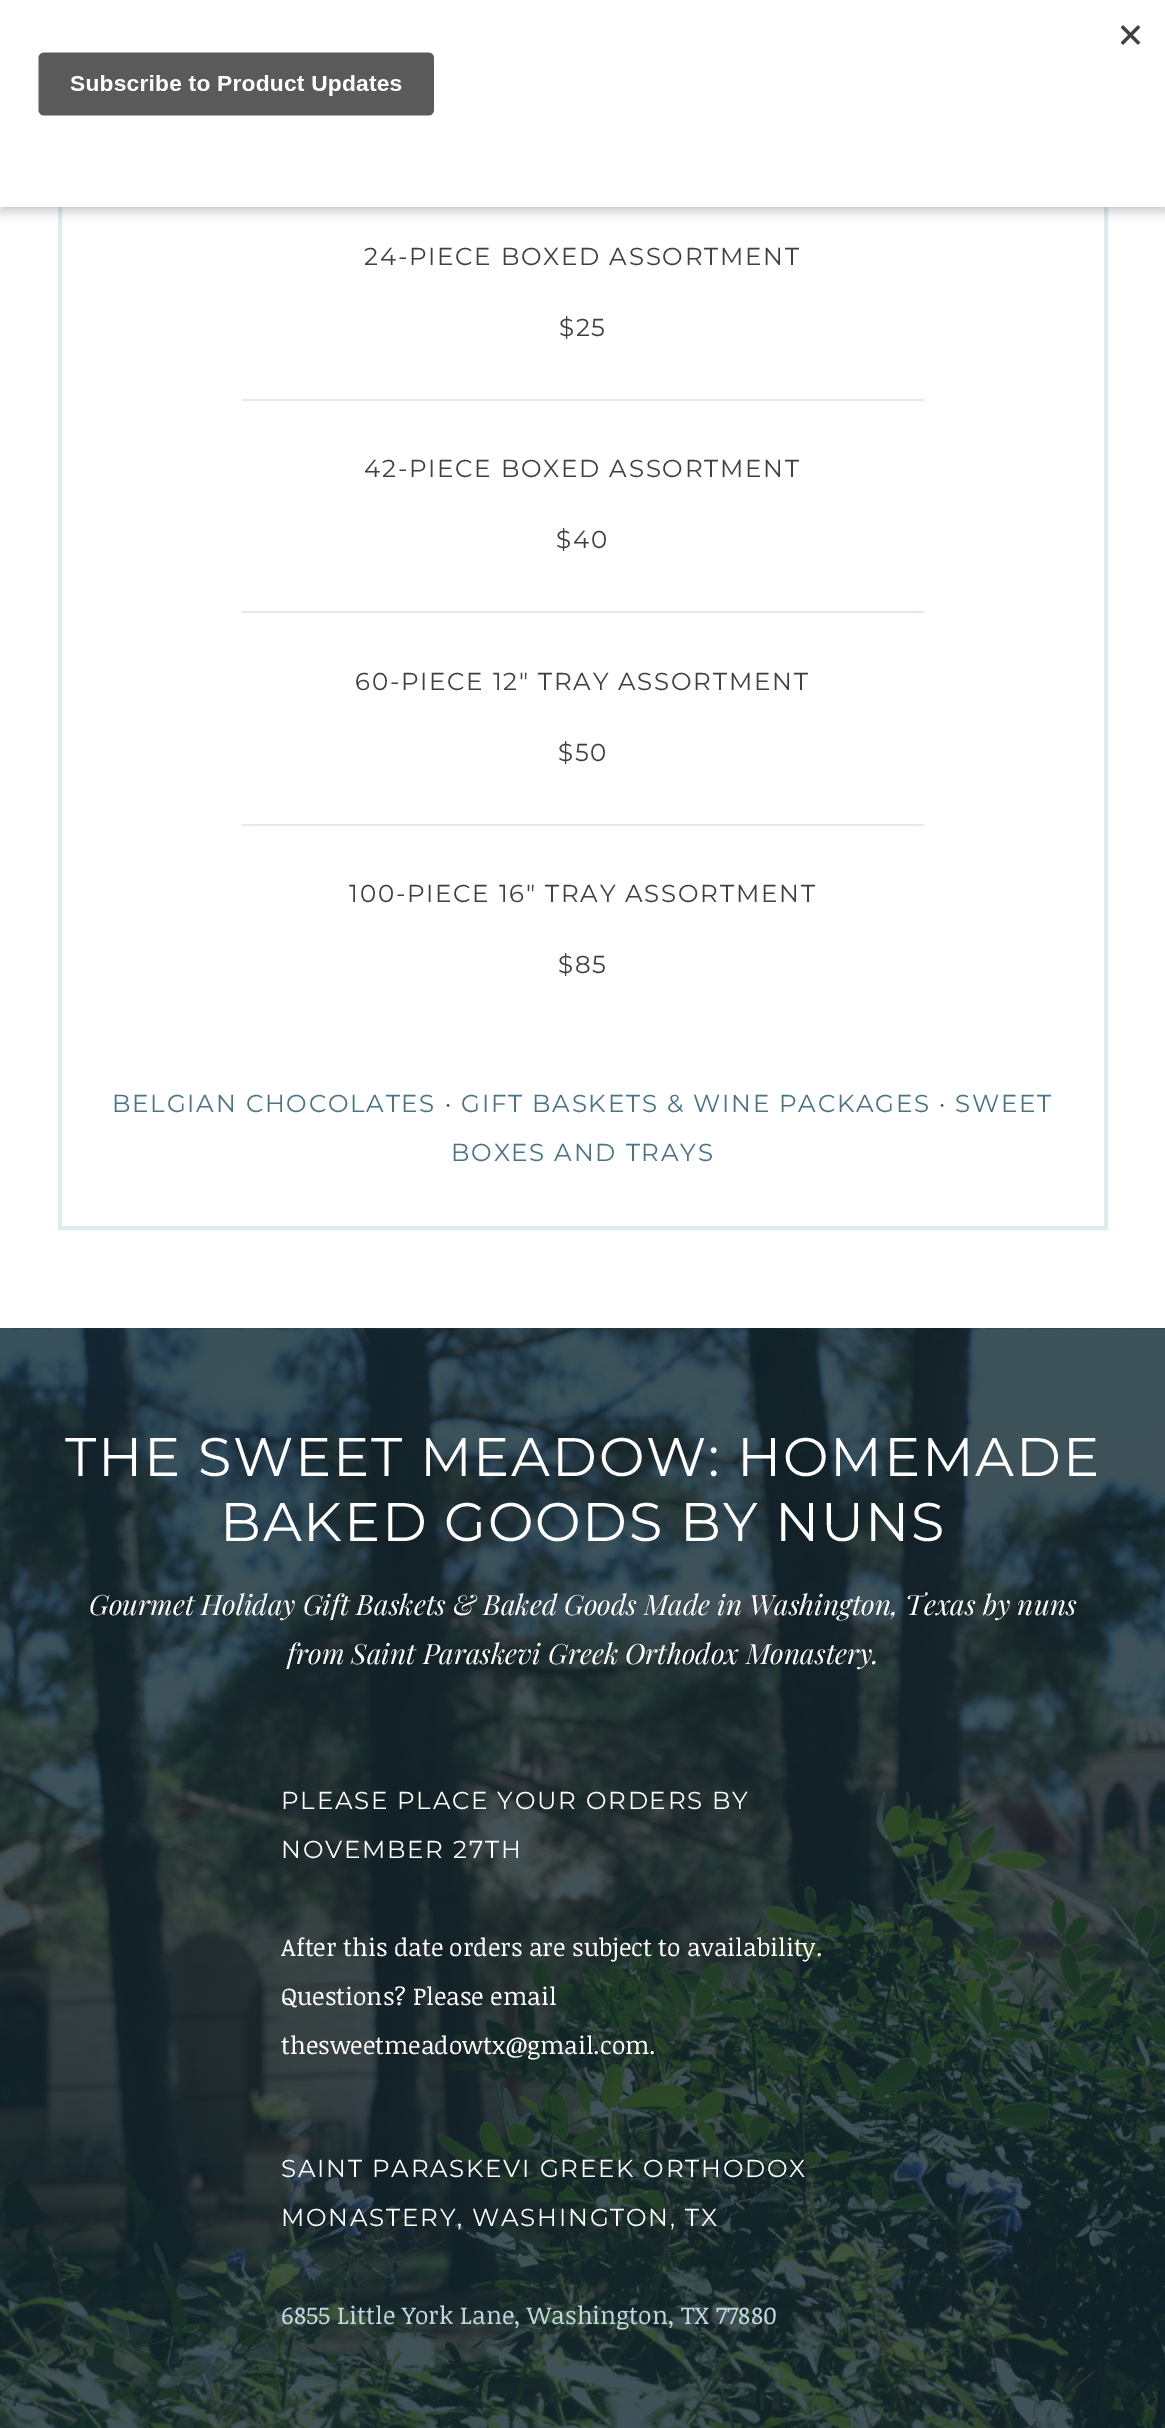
%!PS
<< /PageSize [1165 2428] /PageUsesTransparency true >> setpagedevice
/rgb { 3 { 255 div 3 1 roll } repeat setrgbcolor } def
/font { [ exch dup neg 0 0 3 -1 roll 0 0 ] selectfont } def
/alpha { dup .setfillconstantalpha .setstrokeconstantalpha } def
/roundrect { 5 dict begin { /r /h /w /y /x } { exch def } forall
  x r add y moveto x w add y 2 copy h add r arct x w add y h add x 1 index r arct
  x y h add x y r arct x y 2 copy exch w add exch r arct closepath end } def
/shadow { 12 dict begin { /a /b /q /h /w /y /x } { exch def } forall gsave /was 0 def
  9 -2 -9 { dup b mul 4 div /e exch def 1 sub .425 mul 2.718 exch exp 1 add a .99 .min exch div /now exch def
    1 1 now sub 1 was sub div sub alpha /was now def
    w h .min e 2 mul add 0 gt { x e sub y e sub w e 2 mul add h e 2 mul add
      q e add b .6 mul add w h .min 2 div e add .min 0 .max roundrect fill } if } for grestore end } def
/picture { 5 dict begin { /h /w /y /x /name } { exch def } forall
  gsave x y translate w h scale
  w h 8 [w 0 0 h 0 0] name (r) file false 3 colorimage grestore end } def
0 .pushpdf14devicefilter
0 2428 translate 1 -1 scale
4 setmiterlimit
255 255 255 rgb
0 0 1165 2428 rectfill
223 235 239 rgb
4 setlinewidth
60 -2 1046 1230 rectstroke
0 0 0 rgb
0 5 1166 207 0 5 0.2 shadow
255 255 255 rgb
0 0 1165 207 rectfill
(img/1.rgb) 38 25 1103 91 picture
[
  [242 399 682 2 236 232 224]
  [242 611 682 2 236 232 224]
  [242 824 682 2 236 232 224]
] { aload pop rgb rectfill } forall
(img/2.rgb) 0 1328 1165 1100 picture
/Montserrat-Regular 24.5 font
64 64 64 rgb
364 265 moveto 1.75 0 (24-PIECE BOXED ASSORTMENT) ashow
559 336 moveto 1.75 0 ($25) ashow
364 477 moveto 1.75 0 (42-PIECE BOXED ASSORTMENT) ashow
556 548 moveto 1.75 0 ($40) ashow
355 690 moveto 1.75 0 (60-PIECE 12″ TRAY ASSORTMENT) ashow
558 761 moveto 1.75 0 ($50) ashow
349 902 moveto 1.75 0 (100-PIECE 16″ TRAY ASSORTMENT) ashow
558 973 moveto 1.75 0 ($85) ashow
72 116 131 rgb
112 1112 moveto 1.75 0 (BELGIAN CHOCOLATES) ashow
64 64 64 rgb
445 1112 moveto 1.75 0 (·) ashow
72 116 131 rgb
461 1112 moveto 1.75 0 (GIFT BASKETS & WINE PACKAGES) ashow
64 64 64 rgb
939 1112 moveto 1.75 0 (·) ashow
72 116 131 rgb
955 1112 moveto 1.75 0 (SWEET) ashow
451 1161 moveto 1.75 0 (BOXES AND TRAYS) ashow
/Montserrat-Regular 54.25 font
255 255 255 rgb
65 1476 moveto 1.75 0 (THE SWEET MEADOW: HOMEMADE) ashow
220 1541 moveto 1.75 0 (BAKED GOODS BY NUNS) ashow
/PlayfairDisplay-Italic 28 font
89 1615 moveto (Gourmet Holiday Gift Baskets & Baked Goods Made in Washington, Texas by nuns) show
287 1664 moveto (from Saint Paraskevi Greek Orthodox Monastery.) show
/Montserrat-Regular 24.5 font
281 1809 moveto 1.75 0 (PLEASE PLACE YOUR ORDERS BY) ashow
281 1858 moveto 1.75 0 (NOVEMBER 27TH) ashow
/NoticiaText-Regular 24.5 font
[
  [(After this date orders are subject to availability.) 281 1956]
  [(Questions? Please email) 281 2005]
  [(thesweetmeadowtx@gmail.com.) 281 2054]
] { aload pop moveto show } forall
/Montserrat-Regular 24.5 font
281 2177 moveto 1.75 0 (SAINT PARASKEVI GREEK ORTHODOX) ashow
281 2226 moveto 1.75 0 (MONASTERY, WASHINGTON, TX) ashow
/NoticiaText-Regular 24.5 font
190 215 223 rgb
281 2324 moveto (6855 Little York Lane, Washington, TX 77880) show
.poppdf14devicefilter showpage
